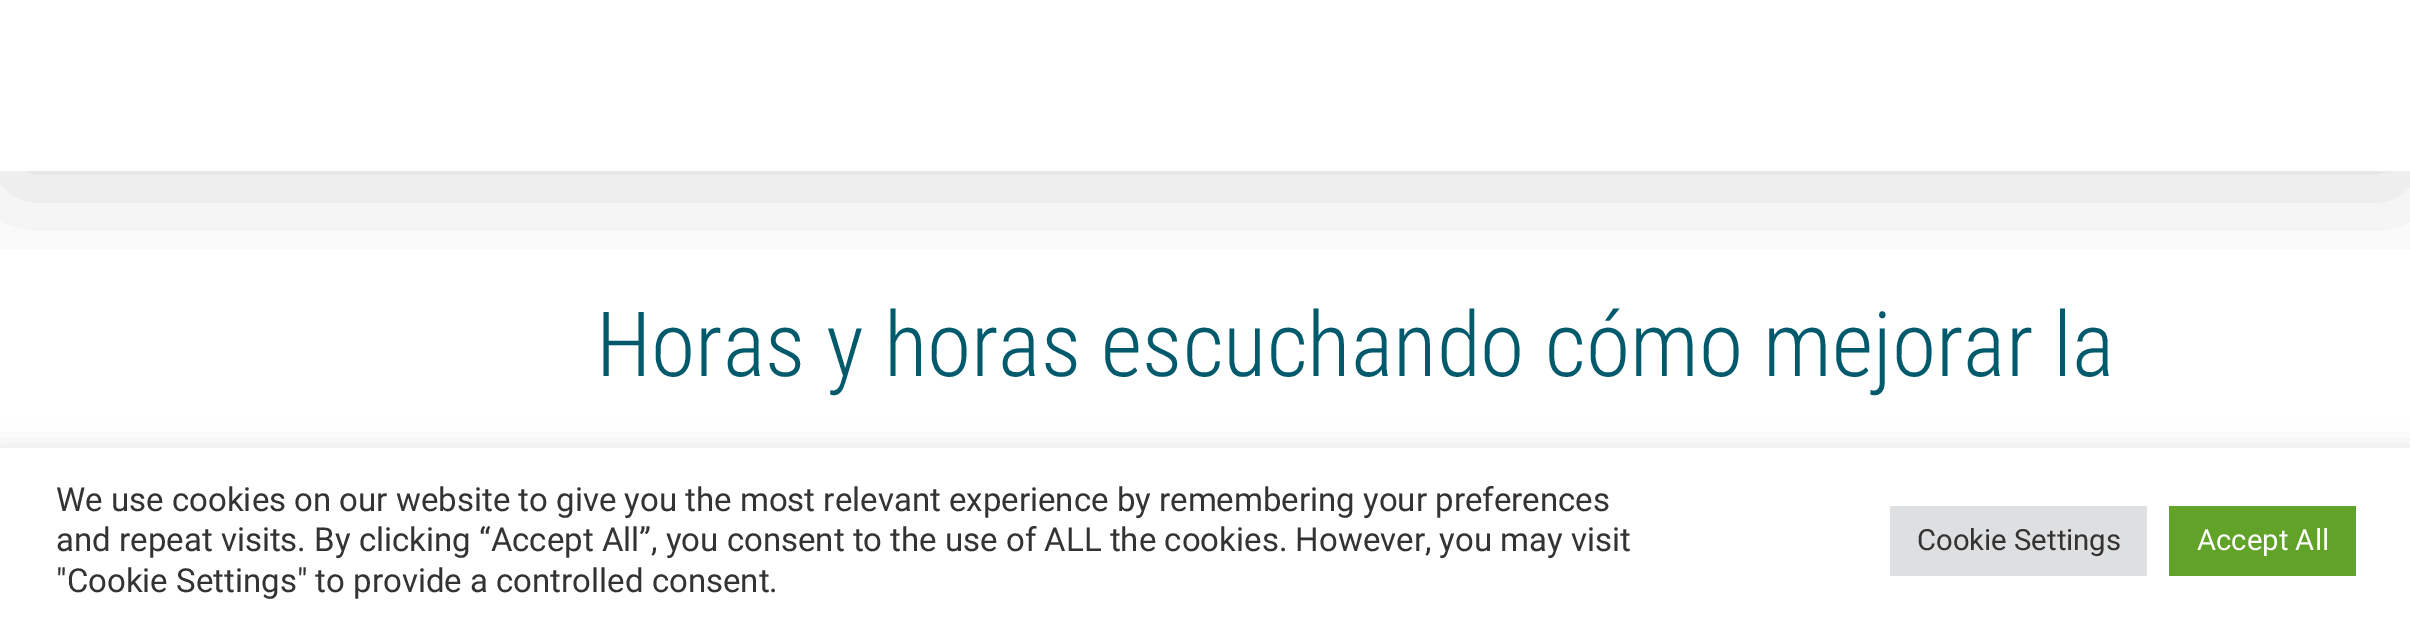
%!PS
<< /PageSize [2410 631] /PageUsesTransparency true >> setpagedevice
/rgb { 3 { 255 div 3 1 roll } repeat setrgbcolor } def
/font { [ exch dup neg 0 0 3 -1 roll 0 0 ] selectfont } def
/alpha { dup .setfillconstantalpha .setstrokeconstantalpha } def
/roundrect { 5 dict begin { /r /h /w /y /x } { exch def } forall
  x r add y moveto x w add y 2 copy h add r arct x w add y h add x 1 index r arct
  x y h add x y r arct x y 2 copy exch w add exch r arct closepath end } def
/shadow { 12 dict begin { /a /b /q /h /w /y /x } { exch def } forall gsave /was 0 def
  9 -2 -9 { dup b mul 4 div /e exch def 1 sub .425 mul 2.718 exch exp 1 add a .99 .min exch div /now exch def
    1 1 now sub 1 was sub div sub alpha /was now def
    w h .min e 2 mul add 0 gt { x e sub y e sub w e 2 mul add h e 2 mul add
      q e add b .6 mul add w h .min 2 div e add .min 0 .max roundrect fill } if } for grestore end } def
0 .pushpdf14devicefilter
0 631 translate 1 -1 scale
4 setmiterlimit
255 255 255 rgb
0 0 2410 631 rectfill
gsave
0 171 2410 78 rectclip
0 0 0 rgb
5 27 2403 162 0 56 0.14 shadow
grestore
172 171 171 rgb
0 446 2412 184 0 11 0.3 shadow
[
  [0 448 2410 183 255 255 255]
  [1890 506 257 70 222 223 224]
  [2169 506 187 70 97 162 41]
] { aload pop rgb rectfill } forall
/RobotoCondensed-Light 90 font
0 90 107 rgb
596 376 moveto (Horas y horas escuchando cómo mejorar la) show
/Roboto-Regular 33 font
51 51 51 rgb
[
  [(We use cookies on our website to give you the most relevant experience by remembering your preferences) 56 511]
  [(and repeat visits. By clicking “Accept All”, you consent to the use of ALL the cookies. However, you may visit) 56 551]
  [("Cookie Settings" to provide a controlled consent.) 56 592]
] { aload pop moveto show } forall
/Roboto-Regular 29.25 font
1917 550 moveto (Cookie Settings) show
255 255 255 rgb
2197 550 moveto (Accept All) show
.poppdf14devicefilter showpage
